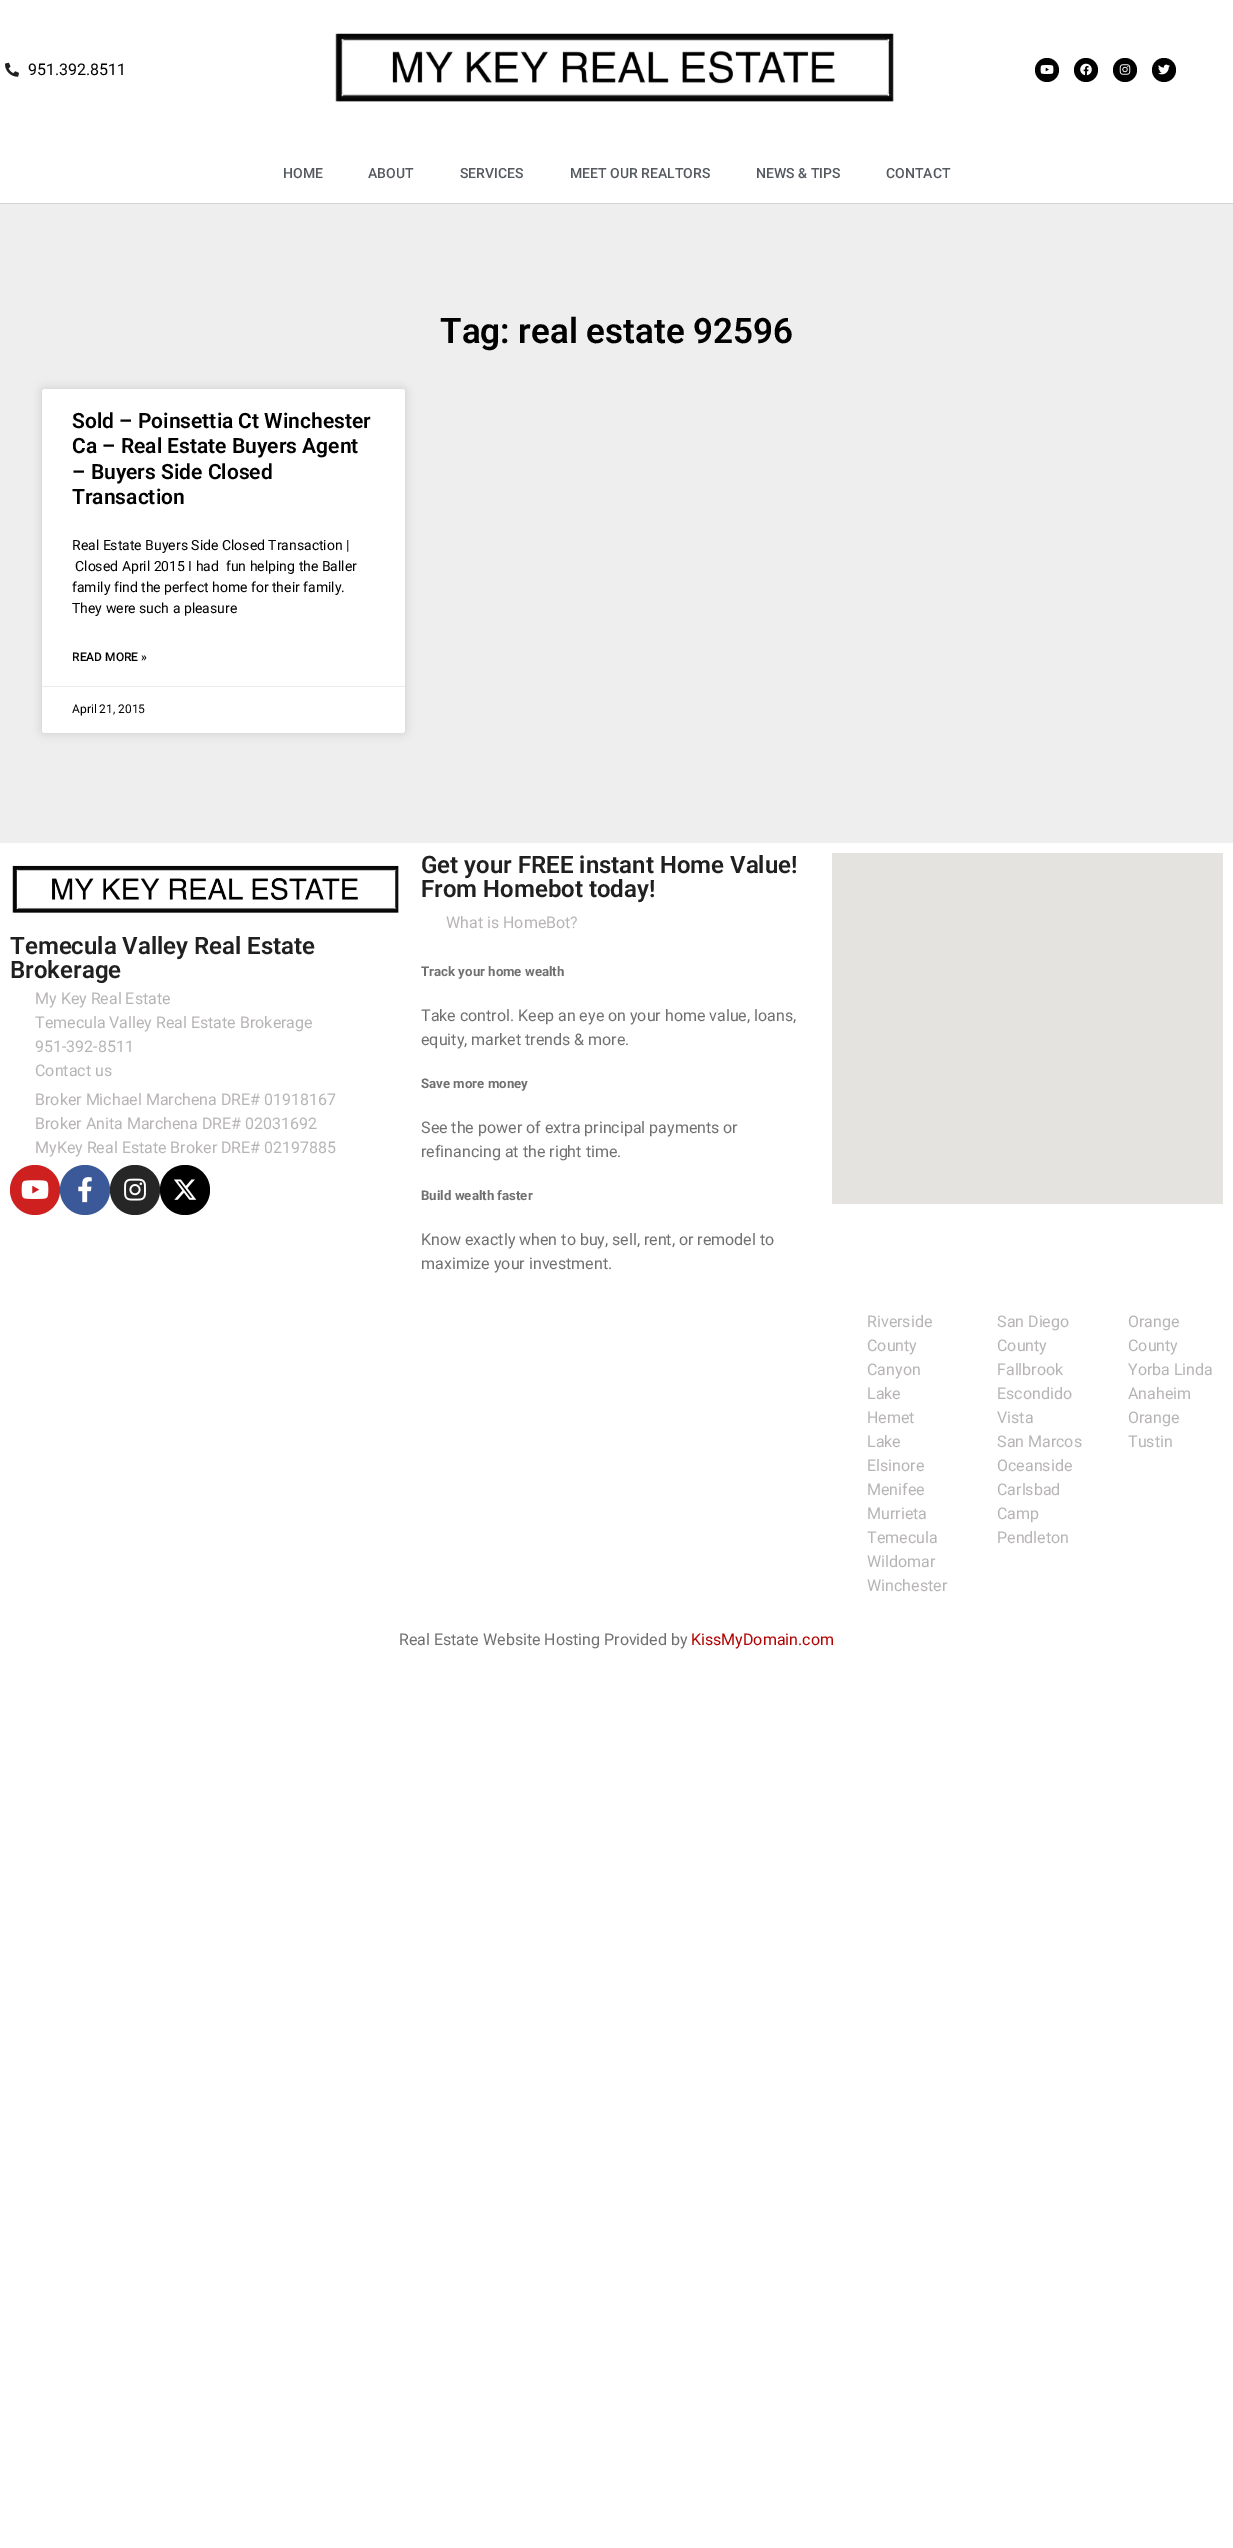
%!PS
<< /PageSize [1233 2548] /PageUsesTransparency true >> setpagedevice
/rgb { 3 { 255 div 3 1 roll } repeat setrgbcolor } def
/font { [ exch dup neg 0 0 3 -1 roll 0 0 ] selectfont } def
/alpha { dup .setfillconstantalpha .setstrokeconstantalpha } def
/circle { newpath 0 360 arc closepath } def
/roundrect { 5 dict begin { /r /h /w /y /x } { exch def } forall
  x r add y moveto x w add y 2 copy h add r arct x w add y h add x 1 index r arct
  x y h add x y r arct x y 2 copy exch w add exch r arct closepath end } def
/shadow { 12 dict begin { /a /b /q /h /w /y /x } { exch def } forall gsave /was 0 def
  9 -2 -9 { dup b mul 4 div /e exch def 1 sub .425 mul 2.718 exch exp 1 add a .99 .min exch div /now exch def
    1 1 now sub 1 was sub div sub alpha /was now def
    w h .min e 2 mul add 0 gt { x e sub y e sub w e 2 mul add h e 2 mul add
      q e add b .6 mul add w h .min 2 div e add .min 0 .max roundrect fill } if } for grestore end } def
/picture { 5 dict begin { /h /w /y /x /name } { exch def } forall
  gsave x y translate w h scale
  w h 8 [w 0 0 h 0 0] name (r) file false 3 colorimage grestore end } def
0 .pushpdf14devicefilter
0 2548 translate 1 -1 scale
4 setmiterlimit
255 255 255 rgb
0 0 1233 2548 rectfill
(img/1.rgb) 5 62 14 15 picture
(img/2.rgb) 335 33 559 69 picture
2 2 2 rgb
1047 70 12 circle fill
(img/3.rgb) 1040 65 14 9 picture
0 0 0 rgb
1086 70 12 circle fill
(img/4.rgb) 1080 63 12 13 picture
1125 70 12 circle fill
(img/5.rgb) 1119 64 12 11 picture
1164 70 12 circle fill
(img/6.rgb) 1158 64 12 11 picture
211 211 211 rgb
0 203 1233 1 rectfill
238 238 238 rgb
0 204 1233 639 rectfill
0 0 0 rgb
42 389 363 344 3 5 0.15 shadow
255 255 255 rgb
42 389 363 344 3 roundrect fill
234 234 234 rgb
42 686 363 1 rectfill
(img/7.rgb) 12 865 387 48 picture
205 32 31 rgb
35 1190 25 circle fill
(img/8.rgb) 21 1180 28 19 picture
59 89 152 rgb
85 1190 25 circle fill
(img/9.rgb) 78 1177 14 26 picture
38 38 38 rgb
135 1190 25 circle fill
(img/10.rgb) 124 1178 22 23 picture
0 0 0 rgb
185 1190 25 circle fill
(img/11.rgb) 174 1179 23 21 picture
229 227 223 rgb
832 853 391 351 rectfill
/Roboto-Regular 16 font
0 0 0 rgb
28 75 moveto (951.392.8511) show
/Roboto-Medium 14 font
84 89 95 rgb
[
  [(HOME) 283 178]
  [(ABOUT) 368 178]
  [(SERVICES) 460 178]
  [(MEET OUR REALTORS) 570 178]
  [(NEWS & TIPS) 756 178]
  [(CONTACT) 886 178]
] { aload pop moveto show } forall
/Roboto-SemiBold 35 font
0 0 0 rgb
440 343 moveto (Tag: real estate 92596) show
/Roboto-SemiBold 21 font
[
  [(Sold – Poinsettia Ct Winchester) 72 428]
  [(Ca – Real Estate Buyers Agent) 72 453]
  [(– Buyers Side Closed) 72 479]
  [(Transaction) 72 504]
] { aload pop moveto show } forall
/Roboto-Regular 14 font
[
  [(Real Estate Buyers Side Closed Transaction |) 72 550]
  [(Closed April 2015 I had  fun helping the Baller) 75 571]
  [(family find the perfect home for their family.) 72 592]
  [(They were such a pleasure) 72 613]
] { aload pop moveto show } forall
/Roboto-Medium 12 font
72 661 moveto (READ MORE ») show
/Roboto-Regular 12 font
72 713 moveto (April 21, 2015) show
/Roboto-SemiBold 24 font
32 32 32 rgb
10 954 moveto (Temecula Valley Real Estate) show
10 978 moveto (Brokerage) show
/Roboto-Regular 16 font
183 180 180 rgb
[
  [(My Key Real Estate) 35 1004]
  [(Temecula Valley Real Estate Brokerage) 35 1028]
  [(951-392-8511) 35 1052]
  [(Contact us) 35 1076]
  [(Broker Michael Marchena DRE# 01918167) 35 1105]
  [(Broker Anita Marchena DRE# 02031692) 35 1129]
  [(MyKey Real Estate Broker DRE# 02197885) 35 1153]
] { aload pop moveto show } forall
/Roboto-SemiBold 24 font
32 32 32 rgb
421 873 moveto (Get your FREE instant Home Value!) show
421 897 moveto (From Homebot today!) show
/Roboto-Regular 16 font
183 180 180 rgb
446 928 moveto (What is HomeBot?) show
/Roboto-Bold 13.25 font
112 112 112 rgb
421 976 moveto (Track your home wealth) show
/Roboto-Regular 16 font
421 1021 moveto (Take control. Keep an eye on your home value, loans,) show
421 1045 moveto (equity, market trends & more.) show
/Roboto-Bold 13.25 font
421 1088 moveto (Save more money) show
/Roboto-Regular 16 font
421 1133 moveto (See the power of extra principal payments or) show
421 1157 moveto (refinancing at the right time.) show
/Roboto-Bold 13.25 font
421 1200 moveto (Build wealth faster) show
/Roboto-Regular 16 font
421 1245 moveto (Know exactly when to buy, sell, rent, or remodel to) show
421 1269 moveto (maximize your investment.) show
183 180 180 rgb
[
  [(Riverside) 867 1327]
  [(County) 867 1351]
  [(Canyon) 867 1375]
  [(Lake) 867 1399]
  [(Hemet) 867 1423]
  [(Lake) 867 1447]
  [(Elsinore) 867 1471]
  [(Menifee) 867 1495]
  [(Murrieta) 867 1519]
  [(Temecula) 867 1543]
  [(Wildomar) 867 1567]
  [(Winchester) 867 1591]
  [(San Diego) 997 1327]
  [(County) 997 1351]
  [(Fallbrook) 997 1375]
  [(Escondido) 997 1399]
  [(Vista) 997 1423]
  [(San Marcos) 997 1447]
  [(Oceanside) 997 1471]
  [(Carlsbad) 997 1495]
  [(Camp) 997 1519]
  [(Pendleton) 997 1543]
  [(Orange) 1128 1327]
  [(County) 1128 1351]
  [(Yorba Linda) 1128 1375]
  [(Anaheim) 1128 1399]
  [(Orange) 1128 1423]
  [(Tustin) 1128 1447]
] { aload pop moveto show } forall
112 112 112 rgb
399 1645 moveto (Real Estate Website Hosting Provided by) show
177 1 1 rgb
691 1645 moveto (KissMyDomain.com) show
.poppdf14devicefilter showpage
